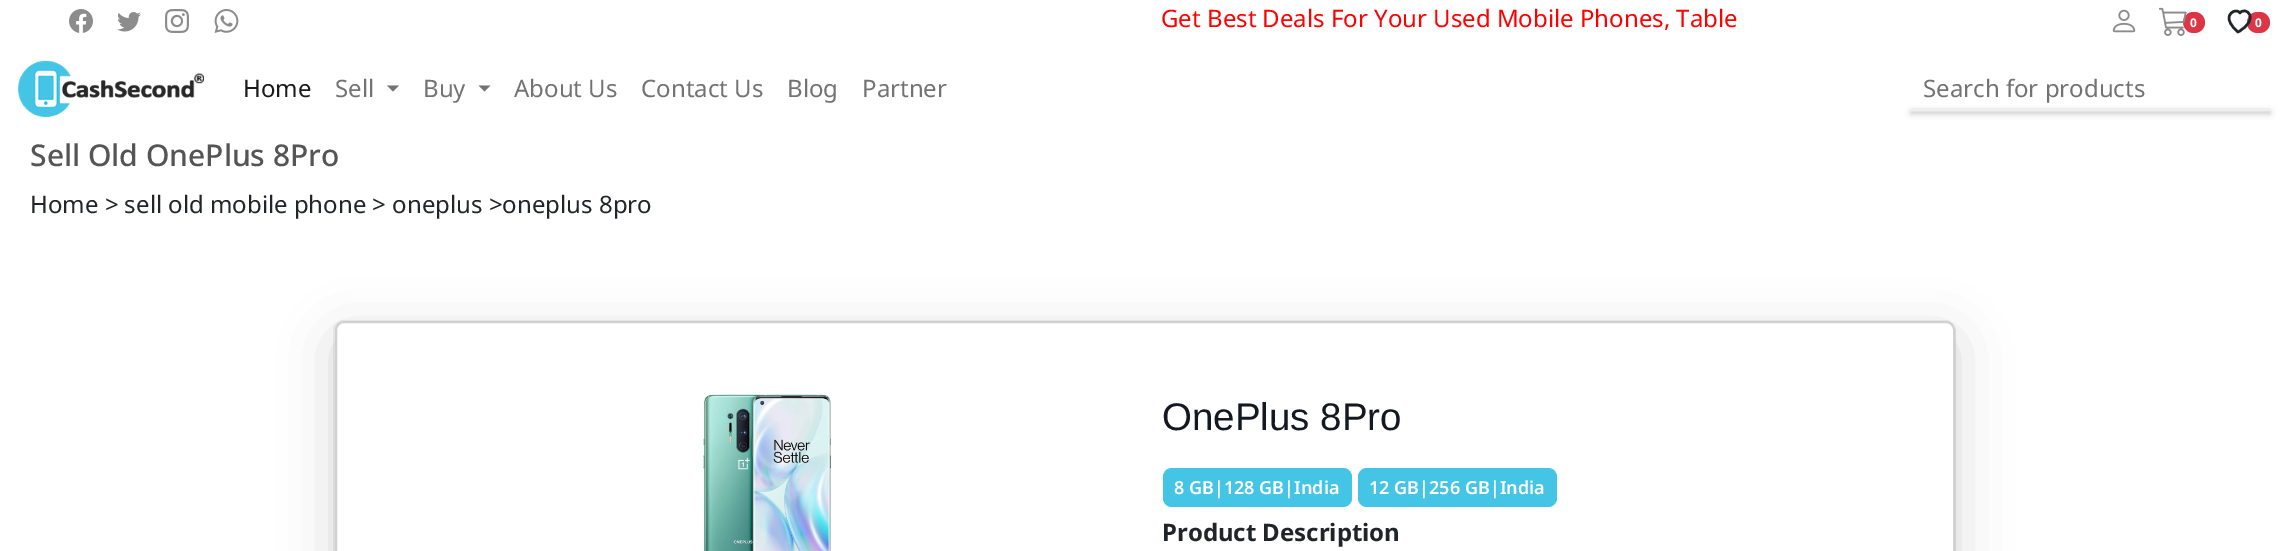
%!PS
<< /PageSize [2287 551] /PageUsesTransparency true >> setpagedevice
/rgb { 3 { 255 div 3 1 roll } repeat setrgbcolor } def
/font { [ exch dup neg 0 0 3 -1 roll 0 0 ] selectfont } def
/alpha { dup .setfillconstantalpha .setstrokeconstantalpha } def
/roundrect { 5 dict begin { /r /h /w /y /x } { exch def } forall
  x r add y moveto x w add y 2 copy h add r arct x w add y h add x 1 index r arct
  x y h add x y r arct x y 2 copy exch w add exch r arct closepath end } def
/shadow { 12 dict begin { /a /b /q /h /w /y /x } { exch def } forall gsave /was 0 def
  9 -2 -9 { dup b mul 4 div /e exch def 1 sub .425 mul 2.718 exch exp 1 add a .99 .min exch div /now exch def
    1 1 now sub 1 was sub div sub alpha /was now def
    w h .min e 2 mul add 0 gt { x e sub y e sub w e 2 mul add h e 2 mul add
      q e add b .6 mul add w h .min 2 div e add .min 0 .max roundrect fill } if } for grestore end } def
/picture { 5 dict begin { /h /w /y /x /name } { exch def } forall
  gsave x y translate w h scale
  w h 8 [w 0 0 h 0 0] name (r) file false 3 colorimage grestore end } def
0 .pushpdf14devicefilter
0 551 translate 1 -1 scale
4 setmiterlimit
255 255 255 rgb
0 0 2287 551 rectfill
(img/1.rgb) 69 9 24 24 picture
(img/2.rgb) 117 12 24 20 picture
(img/3.rgb) 165 9 24 24 picture
(img/4.rgb) 214 9 25 24 picture
(img/5.rgb) 2112 9 24 24 picture
220 53 69 rgb
2183 12 22 21 10.5 roundrect fill
(img/6.rgb) 2159 7 28 29 picture
2247 12 23 21 10.5 roundrect fill
33 37 41 rgb
2.5 setlinewidth
1 setlinecap
1 setlinejoin
2238 32 moveto 2238 32 2229 25 2229 18 curveto 2229 14 2232.5 11 2236 11 curveto 2237.5 11 2239 11.5 2240 13 curveto 2245 5.5 2261.5 18.5 2238 32 curveto closepath stroke
(img/7.rgb) 18 60 186 57 picture
115 115 115 rgb
387 85.5 moveto 399 85.5 lineto 393 91.5 lineto closepath fill
478.5 85.5 moveto 490.5 85.5 lineto 484.5 91.5 lineto closepath fill
0 0 0 rgb
1911 111 359 3 0 3 0.2 shadow
238 238 238 rgb
1911 108 359 3 rectfill
240 240 240 rgb
2 setlinewidth
0 setlinecap
0 setlinejoin
334 321 1621 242 10 roundrect stroke
0 0 0 rgb
335 336 1620 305 9 27 0.16 shadow
255 255 255 rgb
335 321 1620 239 9 roundrect fill
0.18 alpha
0 0 0 rgb
336 322 1618 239 8 roundrect stroke
1 alpha
(img/8.rgb) 703 394 128 157 picture
68 197 229 rgb
1163 468 189 39 9 roundrect fill
1358 468 199 39 9 roundrect fill
/NotoSans-Regular 24 font
255 0 0 rgb
1161 27 moveto (Get Best Deals For Your Used Mobile Phones, Table) show
/NotoSans-Bold 12 font
255 255 255 rgb
2190 27 moveto (0) show
2255 27 moveto (0) show
/NotoSans-Regular 24 font
26 26 26 rgb
243 97 moveto (Home) show
115 115 115 rgb
[
  [(Sell) 335 97]
  [(Buy) 423 97]
  [(About Us) 514 97]
  [(Contact Us) 641 97]
  [(Blog) 787 97]
  [(Partner) 862 97]
  [(Search for products) 1923 97]
] { aload pop moveto show } forall
/NotoSans-Medium 30 font
85 85 85 rgb
30 166 moveto (Sell Old OnePlus 8Pro) show
/NotoSans-Regular 24 font
33 37 41 rgb
30 213 moveto (Home > sell old mobile phone > oneplus >oneplus 8pro) show
/LiberationSans-Regular 38.5 font
19 25 33 rgb
1162 430 moveto (OnePlus 8Pro) show
/NotoSans-SemiBold 18 font
255 255 255 rgb
1174 494 moveto (8 GB|128 GB|India) show
1369 494 moveto (12 GB|256 GB|India) show
/NotoSans-Bold 24 font
33 37 41 rgb
1162 541 moveto (Product Description) show
.poppdf14devicefilter showpage
